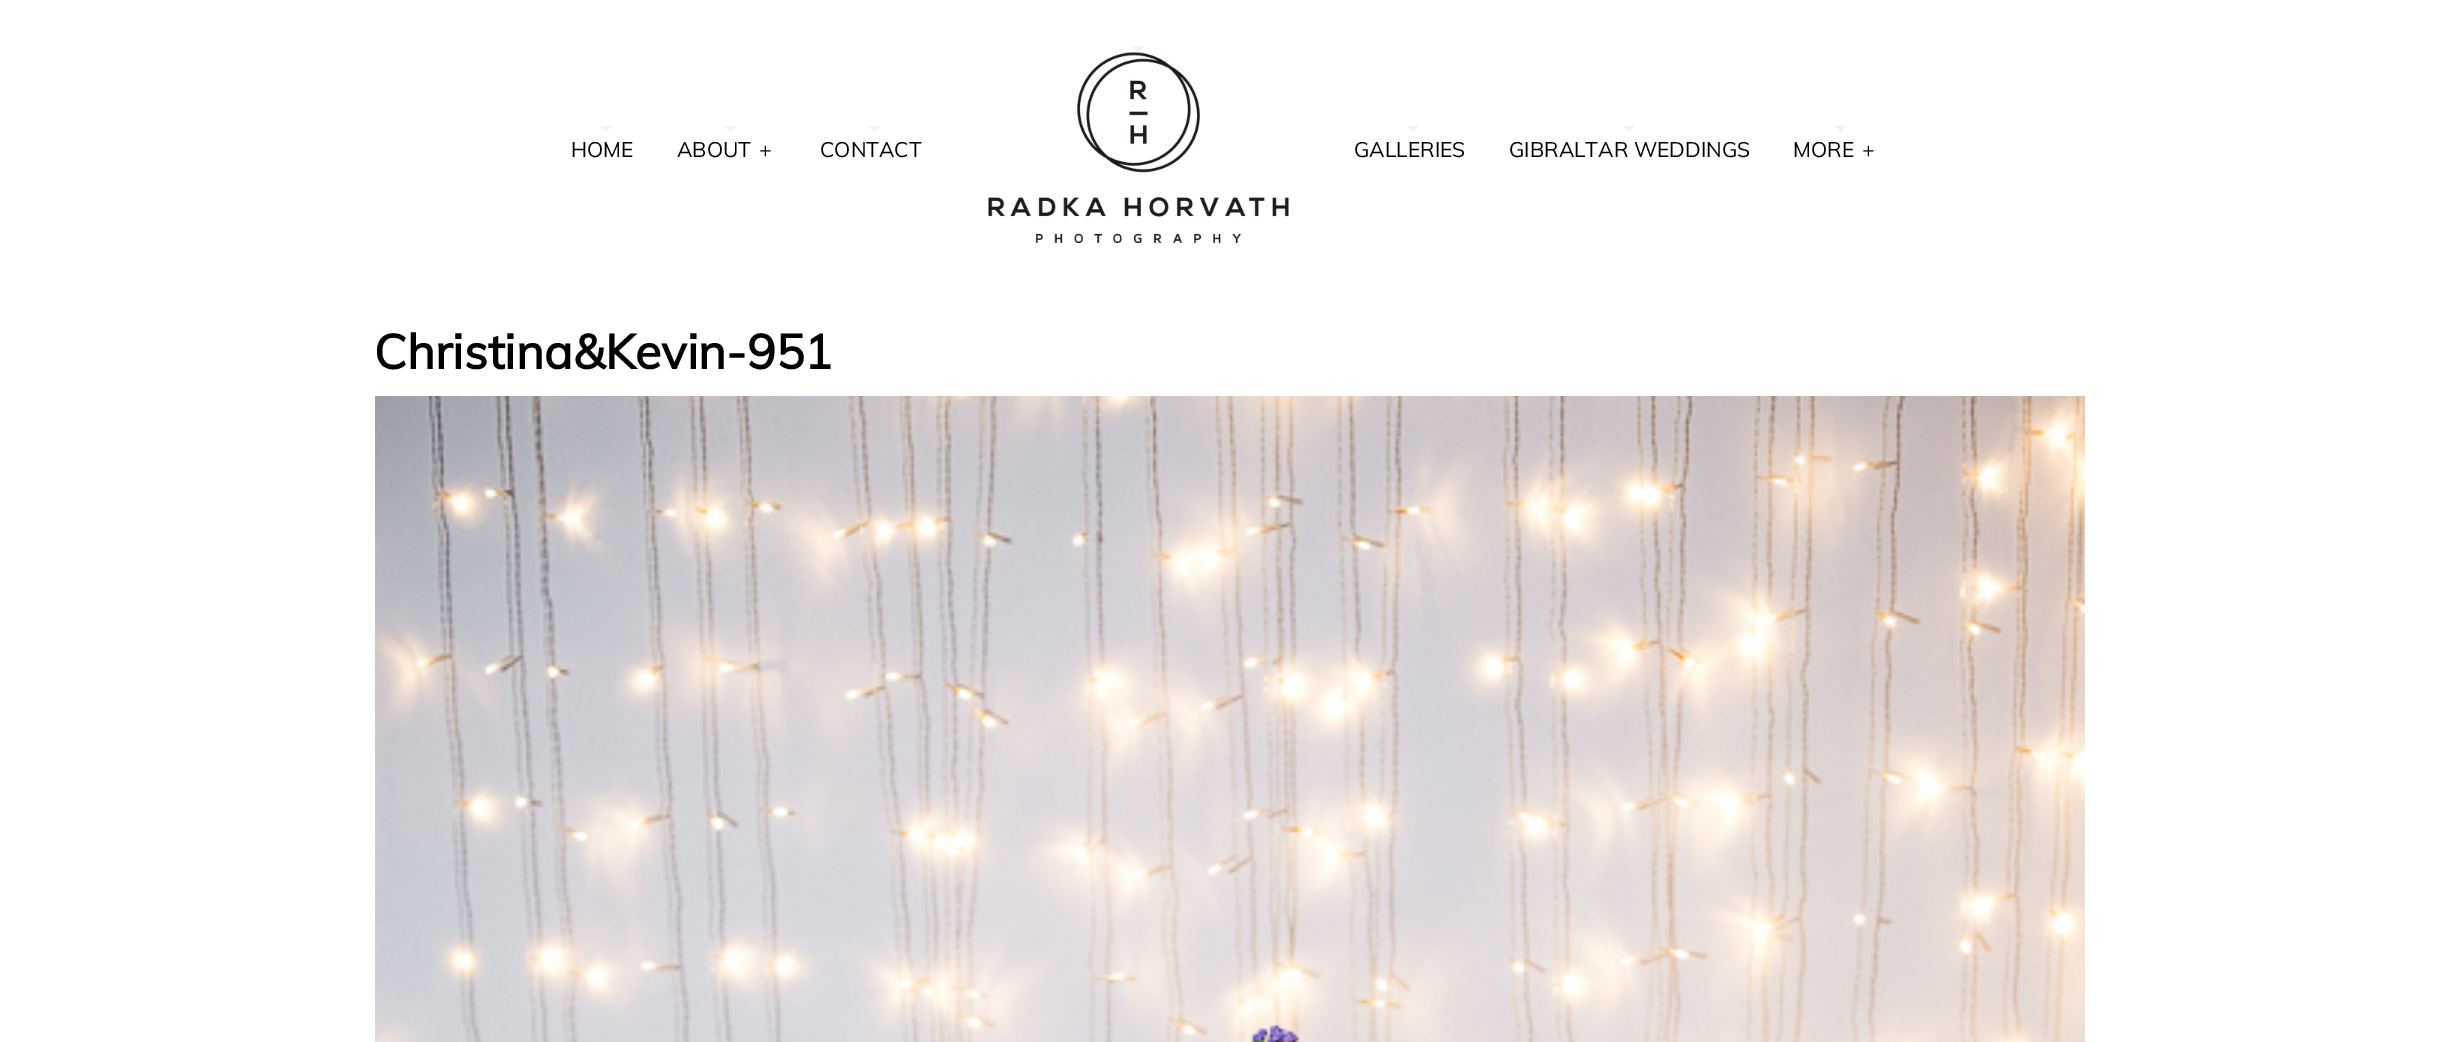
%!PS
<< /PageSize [2458 1042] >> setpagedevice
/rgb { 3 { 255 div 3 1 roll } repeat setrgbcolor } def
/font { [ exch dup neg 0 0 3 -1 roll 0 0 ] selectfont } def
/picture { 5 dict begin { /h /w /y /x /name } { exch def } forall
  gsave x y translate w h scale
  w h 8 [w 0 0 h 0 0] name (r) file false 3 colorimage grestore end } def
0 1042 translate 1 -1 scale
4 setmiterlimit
255 255 255 rgb
0 0 2458 1042 rectfill
242 242 242 rgb
600 126 moveto 612 126 lineto 606 132 lineto closepath fill
724.5 126 moveto 736.5 126 lineto 730.5 132 lineto closepath fill
868.5 126 moveto 880.5 126 lineto 874.5 132 lineto closepath fill
1132.5 46.5 moveto 1144.5 46.5 lineto 1138.5 52.5 lineto closepath fill
(img/1.rgb) 988 52 301 191 picture
1407 126 moveto 1419 126 lineto 1413 132 lineto closepath fill
1623 126 moveto 1635 126 lineto 1629 132 lineto closepath fill
1834.5 126 moveto 1846.5 126 lineto 1840.5 132 lineto closepath fill
(img/2.rgb) 375 396 1710 646 picture
/Muli-Regular 21 font
0 0 0 rgb
[
  [(HOME) 571 157]
  [(ABOUT) 677 157]
  [(+) 759 157]
  [(CONTACT) 820 157]
  [(GALLERIES) 1354 157]
  [(GIBRALTAR WEDDINGS) 1509 157]
  [(MORE) 1793 157]
  [(+) 1862 157]
] { aload pop moveto show } forall
/Muli-Bold 48 font
374 369 moveto (Christina&Kevin-951) show
showpage
